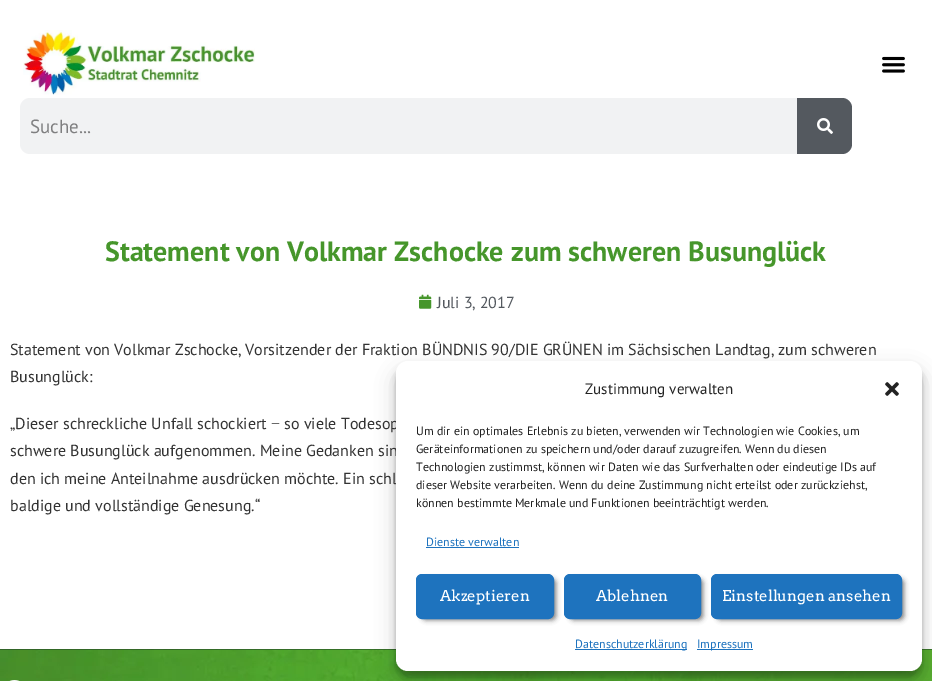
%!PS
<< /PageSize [932 681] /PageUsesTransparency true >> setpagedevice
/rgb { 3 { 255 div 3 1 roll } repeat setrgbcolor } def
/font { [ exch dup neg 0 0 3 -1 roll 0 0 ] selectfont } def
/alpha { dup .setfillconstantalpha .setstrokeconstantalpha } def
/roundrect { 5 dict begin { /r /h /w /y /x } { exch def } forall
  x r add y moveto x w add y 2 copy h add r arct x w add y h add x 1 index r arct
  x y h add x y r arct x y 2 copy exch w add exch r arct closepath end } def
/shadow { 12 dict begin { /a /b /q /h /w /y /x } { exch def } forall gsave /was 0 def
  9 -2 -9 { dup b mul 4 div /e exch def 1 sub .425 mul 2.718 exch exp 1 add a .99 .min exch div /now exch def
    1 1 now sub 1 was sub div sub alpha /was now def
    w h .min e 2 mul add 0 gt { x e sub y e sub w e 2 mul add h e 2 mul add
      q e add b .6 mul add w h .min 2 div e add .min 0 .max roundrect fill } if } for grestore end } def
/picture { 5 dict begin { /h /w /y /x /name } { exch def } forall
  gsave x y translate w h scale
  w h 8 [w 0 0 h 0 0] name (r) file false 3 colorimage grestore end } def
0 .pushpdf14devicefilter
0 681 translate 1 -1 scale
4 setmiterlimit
255 255 255 rgb
0 0 932 681 rectfill
(img/1.rgb) 23 30 232 65 picture
(img/2.rgb) 882 56 23 17 picture
241 242 243 rgb
20 98 832 56 10 roundrect fill
84 89 95 rgb
797 98 moveto 842 98 lineto 847.5 98 852 102.5 852 108 curveto 852 144 lineto 852 149.5 847.5 154 842 154 curveto 797 154 lineto closepath fill
(img/3.rgb) 817 118 16 16 picture
(img/4.rgb) 419 294 13 15 picture
(img/5.rgb) 0 649 932 32 picture
0.2 alpha
3 53 55 rgb
0 649 932 1 rectfill
1 alpha
(img/6.rgb) 9 680 11 1 picture
0 0 0 rgb
396 367 526 310 12 3 0.23 shadow
396 371 526 310 12 10 0.19 shadow
/PTSans-Regular 19 font
127 127 128 rgb
30 133 moveto (Suche...) show
/PTSans-Bold 28 font
70 150 43 rgb
105 261 moveto (Statement von Volkmar Zschocke zum schweren Busunglück) show
/PTSans-Regular 16 font
84 89 95 rgb
437 308 moveto (Juli 3, 2017) show
51 51 51 rgb
[
  [(Statement von Volkmar Zschocke, Vorsitzender der Fraktion BÜNDNIS 90/DIE GRÜNEN im Sächsischen Landtag, zum schweren) 10 355]
  [(Busunglück:) 10 382]
  [(„Dieser schreckliche Unfall schockiert) 10 429]
] { aload pop moveto show } forall
/LiberationSerif-Regular 16 font
271 429 moveto (−) show
/PTSans-Regular 16 font
[
  [(so viele Todesop) 284 429]
  [(schwere Busunglück aufgenommen. Meine Gedanken sin) 10 456]
  [(den ich meine Anteilnahme ausdrücken möchte. Ein schl) 10 484]
  [(baldige und vollständige Genesung.“) 10 511]
] { aload pop moveto show } forall
255 255 255 rgb
396 361 526 310 12 roundrect fill
/PTSans-Regular 15 font
34 34 34 rgb
585 394 moveto (Zustimmung verwalten) show
(img/7.rgb) 885 382 14 14 picture
/PTSans-Regular 12 font
[
  [(Um dir ein optimales Erlebnis zu bieten, verwenden wir Technologien wie Cookies, um) 416 435]
  [(Geräteinformationen zu speichern und/oder darauf zuzugreifen. Wenn du diesen) 416 453]
  [(Technologien zustimmst, können wir Daten wie das Surfverhalten oder eindeutige IDs auf) 416 471]
  [(dieser Website verarbeiten. Wenn du deine Zustimmung nicht erteilst oder zurückziehst,) 416 489]
  [(können bestimmte Merkmale und Funktionen beeinträchtigt werden.) 416 507]
] { aload pop moveto show } forall
30 115 190 rgb
426 546 moveto (Dienste verwalten) show
426 547 93 1 rectfill
0 0 0 rgb
422 579 134 41 4 2.5 0.5 shadow
30 115 190 rgb
416.5 574.5 137 44 5.5 roundrect gsave fill grestore
stroke
/Arvo-Regular 15 font
255 255 255 rgb
440 601 moveto (Akzeptieren) show
0 0 0 rgb
570 579 133 41 4 2.5 0.5 shadow
30 115 190 rgb
564.5 574.5 136 44 5.5 roundrect gsave fill grestore
stroke
255 255 255 rgb
596 601 moveto (Ablehnen) show
0 0 0 rgb
717 579 187 41 4 2.5 0.5 shadow
30 115 190 rgb
711.5 574.5 190 44 5.5 roundrect gsave fill grestore
stroke
255 255 255 rgb
722 601 moveto (Einstellungen ansehen) show
30 115 190 rgb
575 649 112 1 rectfill
/PTSans-Regular 12 font
575 648 moveto (Datenschutzerklärung) show
697 649 56 1 rectfill
697 648 moveto (Impressum) show
.poppdf14devicefilter showpage
